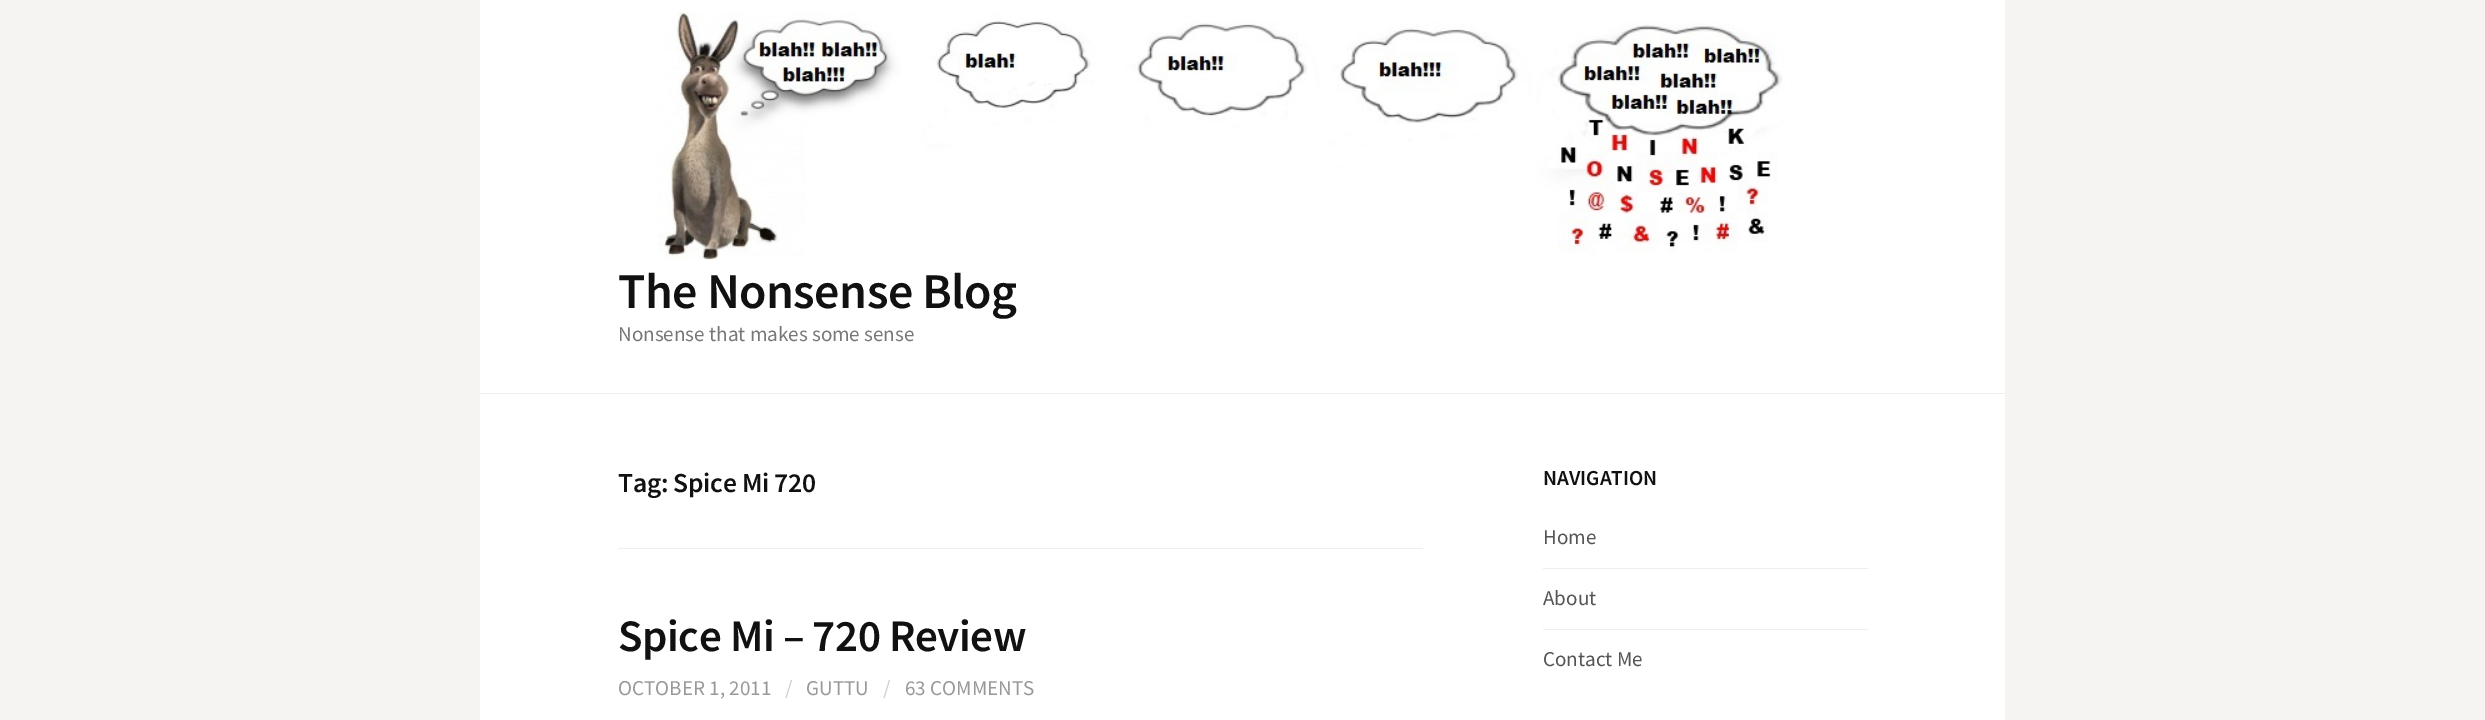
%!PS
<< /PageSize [2485 720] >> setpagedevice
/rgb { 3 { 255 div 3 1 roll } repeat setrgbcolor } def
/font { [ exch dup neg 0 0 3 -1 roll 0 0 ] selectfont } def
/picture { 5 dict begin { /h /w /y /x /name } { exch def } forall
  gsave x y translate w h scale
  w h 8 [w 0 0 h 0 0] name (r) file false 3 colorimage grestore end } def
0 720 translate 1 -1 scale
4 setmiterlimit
245 244 242 rgb
0 0 2485 720 rectfill
255 255 255 rgb
480 0 1525 720 rectfill
238 238 238 rgb
480 393 1525 1 rectfill
(img/1.rgb) 658 12 1127 248 picture
[
  [618 548 805 1 238 238 238]
  [1543 568 325 1 238 238 238]
  [1543 629 325 1 238 238 238]
] { aload pop rgb rectfill } forall
/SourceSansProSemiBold-SemiBold 50 font
17 17 17 rgb
618 308 moveto -0.5 0 (The Nonsense Blog) ashow
/SourceSansPro-Regular 21.1 font
119 119 119 rgb
618 341 moveto (Nonsense that makes some sense) show
/SourceSansProSemiBold-SemiBold 27.5 font
17 17 17 rgb
618 492 moveto -0.25 0 (Tag: Spice Mi 720) ashow
/SourceSansProSemiBold-SemiBold 45 font
618 651 moveto -0.45 0 (Spice Mi – 720 Review) ashow
/SourceSansPro-Regular 21.1 font
153 153 153 rgb
618 695 moveto (OCTOBER 1, 2011) show
204 204 204 rgb
785 695 moveto (/) show
153 153 153 rgb
806 695 moveto (GUTTU) show
204 204 204 rgb
883 695 moveto (/) show
153 153 153 rgb
905 695 moveto (63 COMMENTS) show
/SourceSansProSemiBold-SemiBold 21.25 font
17 17 17 rgb
1543 485 moveto (NAVIGATION) show
/SourceSansPro-Regular 21.1 font
85 85 85 rgb
[
  [(Home) 1543 544]
  [(About) 1543 605]
  [(Contact Me) 1543 666]
] { aload pop moveto show } forall
showpage
